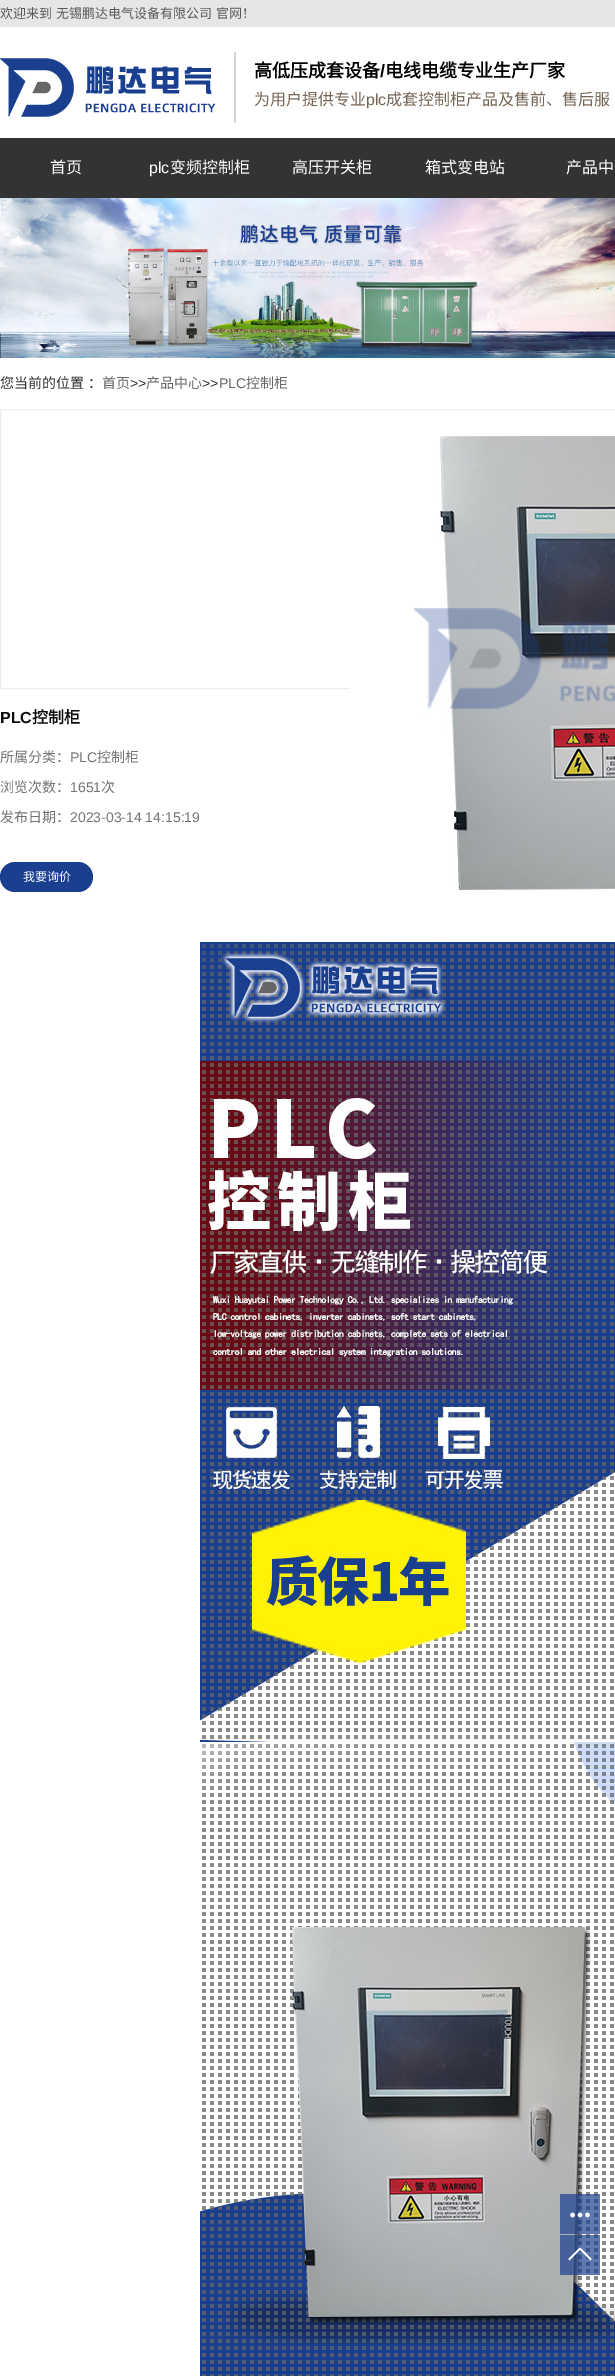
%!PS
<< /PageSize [615 2376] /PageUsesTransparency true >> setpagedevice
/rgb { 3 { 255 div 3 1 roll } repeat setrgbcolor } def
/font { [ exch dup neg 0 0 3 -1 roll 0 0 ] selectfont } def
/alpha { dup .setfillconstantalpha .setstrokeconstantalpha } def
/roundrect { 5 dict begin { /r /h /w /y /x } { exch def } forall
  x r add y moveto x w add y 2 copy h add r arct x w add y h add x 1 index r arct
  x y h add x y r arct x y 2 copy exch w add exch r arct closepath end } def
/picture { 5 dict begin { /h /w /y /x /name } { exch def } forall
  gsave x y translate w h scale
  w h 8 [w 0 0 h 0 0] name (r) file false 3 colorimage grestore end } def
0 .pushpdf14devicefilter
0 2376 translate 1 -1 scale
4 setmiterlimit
255 255 255 rgb
0 0 615 2376 rectfill
230 230 230 rgb
0 0 615 27 rectfill
(img/1.rgb) 0 58 216 59 picture
213 213 213 rgb
234 52 2 71 rectfill
51 51 51 rgb
0 138 615 60 rectfill
(img/2.rgb) 0 198 615 160 picture
238 238 238 rgb
0.5 409.5 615 279 rectstroke
(img/3.rgb) 350 436 265 454 picture
26 63 143 rgb
0 862 93 30 15 roundrect fill
(img/4.rgb) 200 942 415 800 picture
(img/5.rgb) 200 1742 415 634 picture
0.7 alpha
560 2194 40 40 rectfill
1 alpha
(img/6.rgb) 570 2212 20 6 picture
0.7 alpha
560 2235 40 40 rectfill
1 alpha
(img/7.rgb) 568 2247 24 14 picture
/NotoSansCJKSC-Regular 13 font
89 89 89 rgb
0 18 moveto 1 0 32 (欢迎来到 无锡鹏达电气设备有限公司 官网！) widthshow
/NotoSansCJKSC-Bold 18 font
0 0 0 rgb
254 77 moveto (高低压成套设备) show
/LiberationSans-Bold 18 font
380 77 moveto (/) show
/NotoSansCJKSC-Bold 18 font
385 77 moveto (电线电缆专业生产厂家) show
/NotoSansCJKSC-Regular 16 font
117 102 84 rgb
254 105 moveto (为用户提供专业) show
/LiberationSans-Regular 16 font
366 105 moveto (plc) show
/NotoSansCJKSC-Regular 16 font
386 105 moveto (成套控制柜产品及售前、售后服) show
255 255 255 rgb
50 173 moveto (首页) show
/LiberationSans-Regular 16 font
149 173 moveto (plc) show
/NotoSansCJKSC-Regular 16 font
[
  [(变频控制柜) 170 173]
  [(高压开关柜) 292 173]
  [(箱式变电站) 425 173]
  [(产品中) 566 173]
] { aload pop moveto show } forall
/NotoSansCJKSC-Regular 14 font
47 47 47 rgb
0 388 moveto 1 0 32 (您当前的位置 ：) widthshow
102 102 102 rgb
102 388 moveto (首页) show
/LiberationSans-Regular 14 font
47 47 47 rgb
130 388 moveto (>>) show
/NotoSansCJKSC-Regular 14 font
102 102 102 rgb
146 388 moveto (产品中心) show
/LiberationSans-Regular 14 font
47 47 47 rgb
202 388 moveto (>>) show
102 102 102 rgb
219 388 moveto (PLC) show
/NotoSansCJKSC-Regular 14 font
246 388 moveto (控制柜) show
/LiberationSans-Bold 16 font
13 13 13 rgb
0 723 moveto (PLC) show
/NotoSansCJKSC-Bold 16 font
32 723 moveto (控制柜) show
/NotoSansCJKSC-Regular 14 font
119 114 114 rgb
0 762 moveto (所属分类：) show
/LiberationSans-Regular 14 font
70 762 moveto (PLC) show
/NotoSansCJKSC-Regular 14 font
97 762 moveto (控制柜) show
0 792 moveto (浏览次数：) show
/LiberationSans-Regular 14 font
70 792 moveto (1651) show
/NotoSansCJKSC-Regular 14 font
101 792 moveto (次) show
0 822 moveto (发布日期：) show
/LiberationSans-Regular 14 font
70 822 moveto (2023-03-14 14:15:19) show
/NotoSansCJKSC-Regular 12 font
255 255 255 rgb
23 881 moveto (我要询价) show
.poppdf14devicefilter showpage
